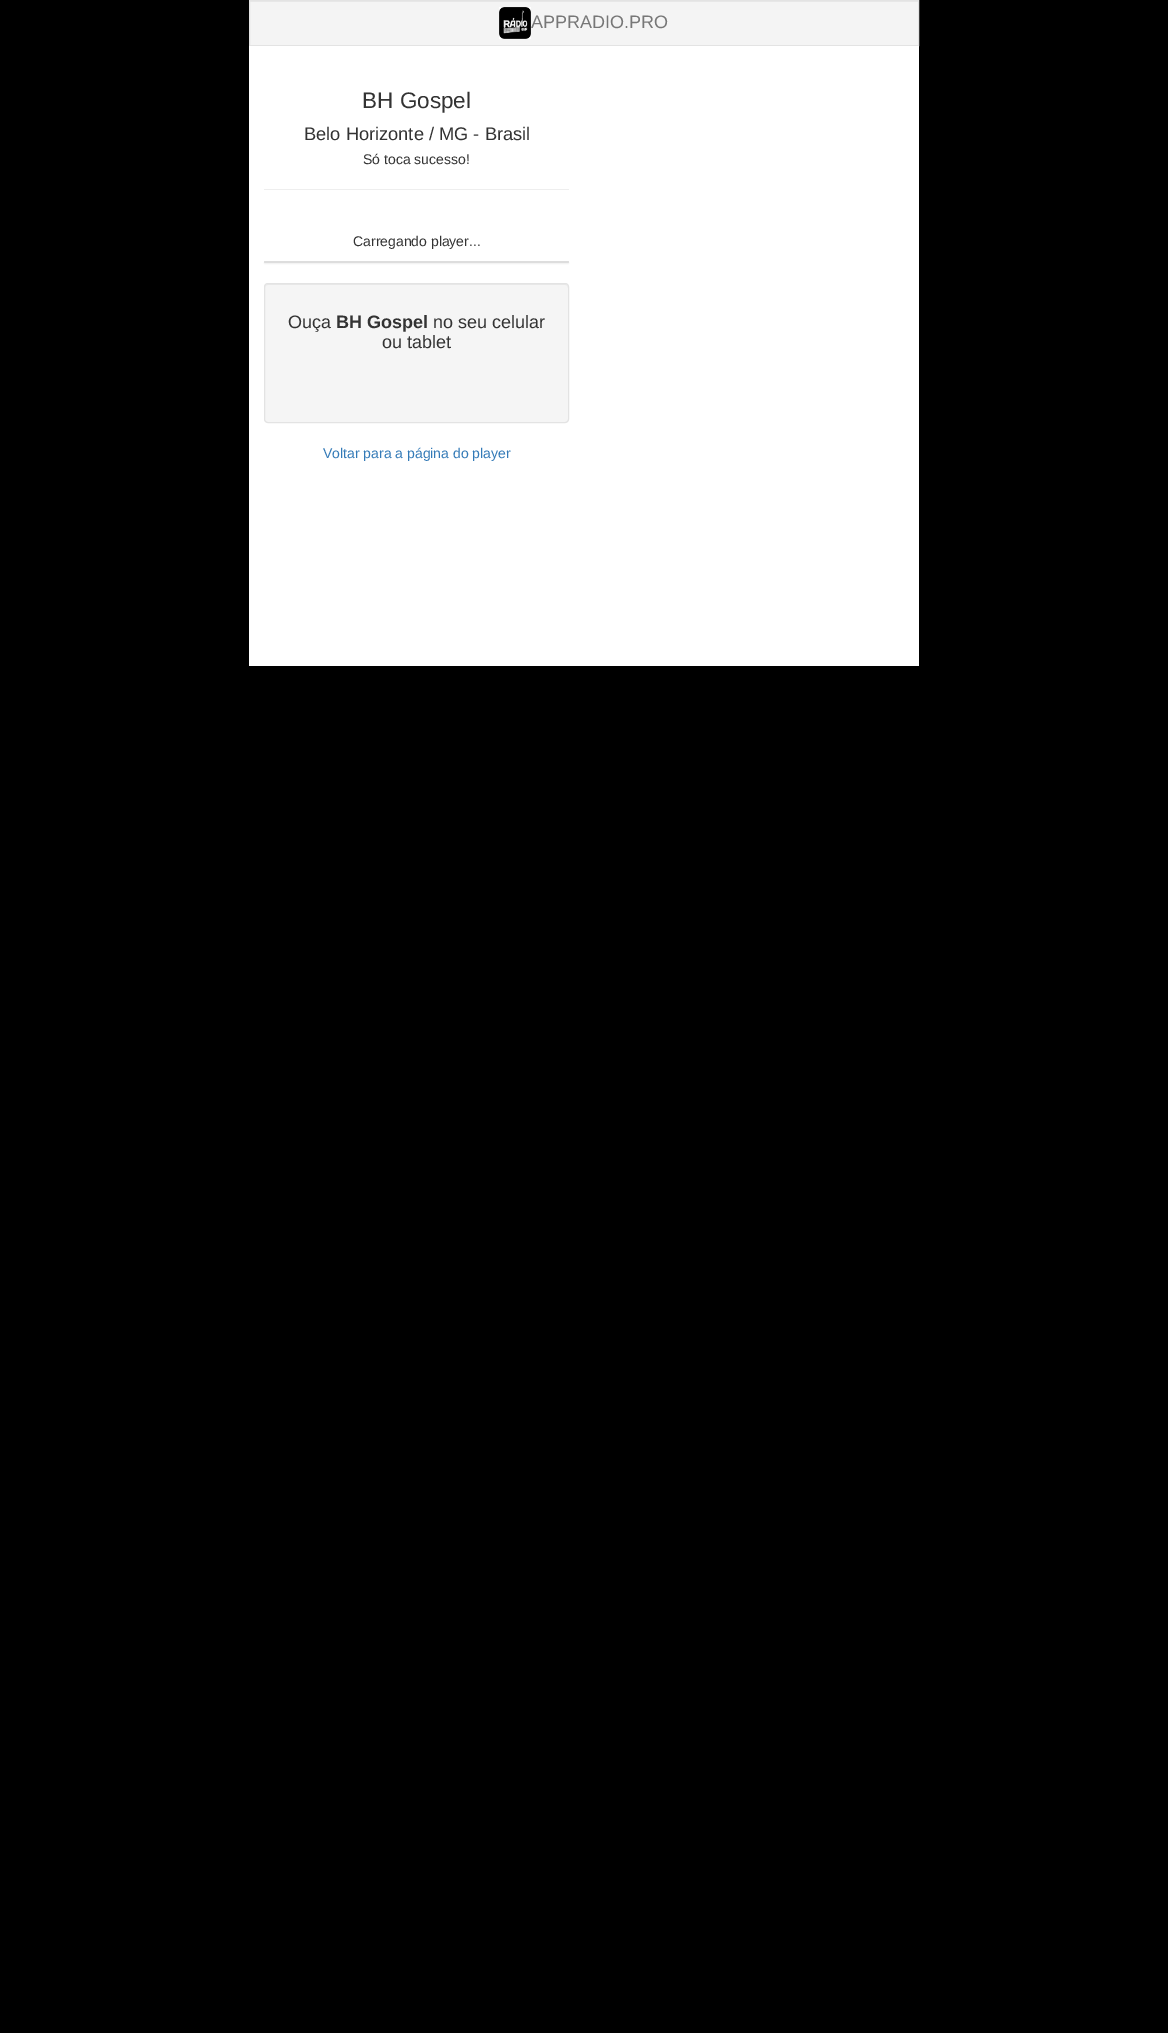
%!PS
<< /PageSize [1168 2033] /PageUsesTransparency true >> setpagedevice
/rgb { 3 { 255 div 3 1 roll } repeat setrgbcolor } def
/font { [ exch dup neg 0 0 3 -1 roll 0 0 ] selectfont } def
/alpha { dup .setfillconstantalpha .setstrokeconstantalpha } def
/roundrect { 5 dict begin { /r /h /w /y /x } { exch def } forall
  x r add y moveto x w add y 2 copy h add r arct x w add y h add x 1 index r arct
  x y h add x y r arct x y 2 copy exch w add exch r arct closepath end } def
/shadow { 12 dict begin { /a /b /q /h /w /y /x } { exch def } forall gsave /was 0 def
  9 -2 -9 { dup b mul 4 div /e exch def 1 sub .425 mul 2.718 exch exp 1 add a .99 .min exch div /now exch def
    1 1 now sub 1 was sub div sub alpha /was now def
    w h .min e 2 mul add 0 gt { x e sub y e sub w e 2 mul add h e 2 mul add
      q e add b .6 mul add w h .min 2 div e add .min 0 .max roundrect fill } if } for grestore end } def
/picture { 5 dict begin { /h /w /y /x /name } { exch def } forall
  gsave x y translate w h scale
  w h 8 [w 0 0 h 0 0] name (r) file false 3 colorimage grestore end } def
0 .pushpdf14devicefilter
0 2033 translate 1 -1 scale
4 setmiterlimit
0 0 0 rgb
0 0 1168 2033 rectfill
244 244 244 rgb
250 2 668 43 rectfill
232 232 232 rgb
250 1 668 1 rectfill
227 227 227 rgb
249.5 0.5 669 45 rectstroke
(img/1.rgb) 499 7 32 32 picture
255 255 255 rgb
249 46 670 620 rectfill
238 238 238 rgb
264 189 305 1 rectfill
0 0 0 rgb
264 262 305 2 1 0.5 0.05 shadow
221 221 221 rgb
264 261 305 2 1 roundrect fill
245 245 245 rgb
264 283 305 140 4 roundrect fill
233 233 233 rgb
268 285 moveto 565 285 lineto 567 285 568 286 568 288 curveto 567 285 lineto 566 284 lineto 268 284 lineto 266 284 265 286 265 288 curveto 265 286 266 285 268 285 curveto closepath fill
227 227 227 rgb
264.5 283.5 304 139 3.5 roundrect stroke
/LiberationSans-Regular 18 font
119 119 119 rgb
531 28 moveto (APPRADIO.PRO) show
/LiberationSans-Regular 22.5 font
51 51 51 rgb
362 108 moveto (BH Gospel) show
/LiberationSans-Regular 18.25 font
304 140 moveto (Belo Horizonte / MG - Brasil) show
/LiberationSans-Regular 14 font
363 164 moveto (Só toca sucesso!) show
353 246 moveto (Carregando player...) show
/LiberationSans-Regular 18 font
288 328 moveto (Ouça) show
/LiberationSans-Bold 18 font
336 328 moveto (BH Gospel) show
/LiberationSans-Regular 18 font
433 328 moveto (no seu celular) show
382 348 moveto (ou tablet) show
/LiberationSans-Regular 14 font
51 122 183 rgb
323 458 moveto (Voltar para a página do player) show
.poppdf14devicefilter showpage
